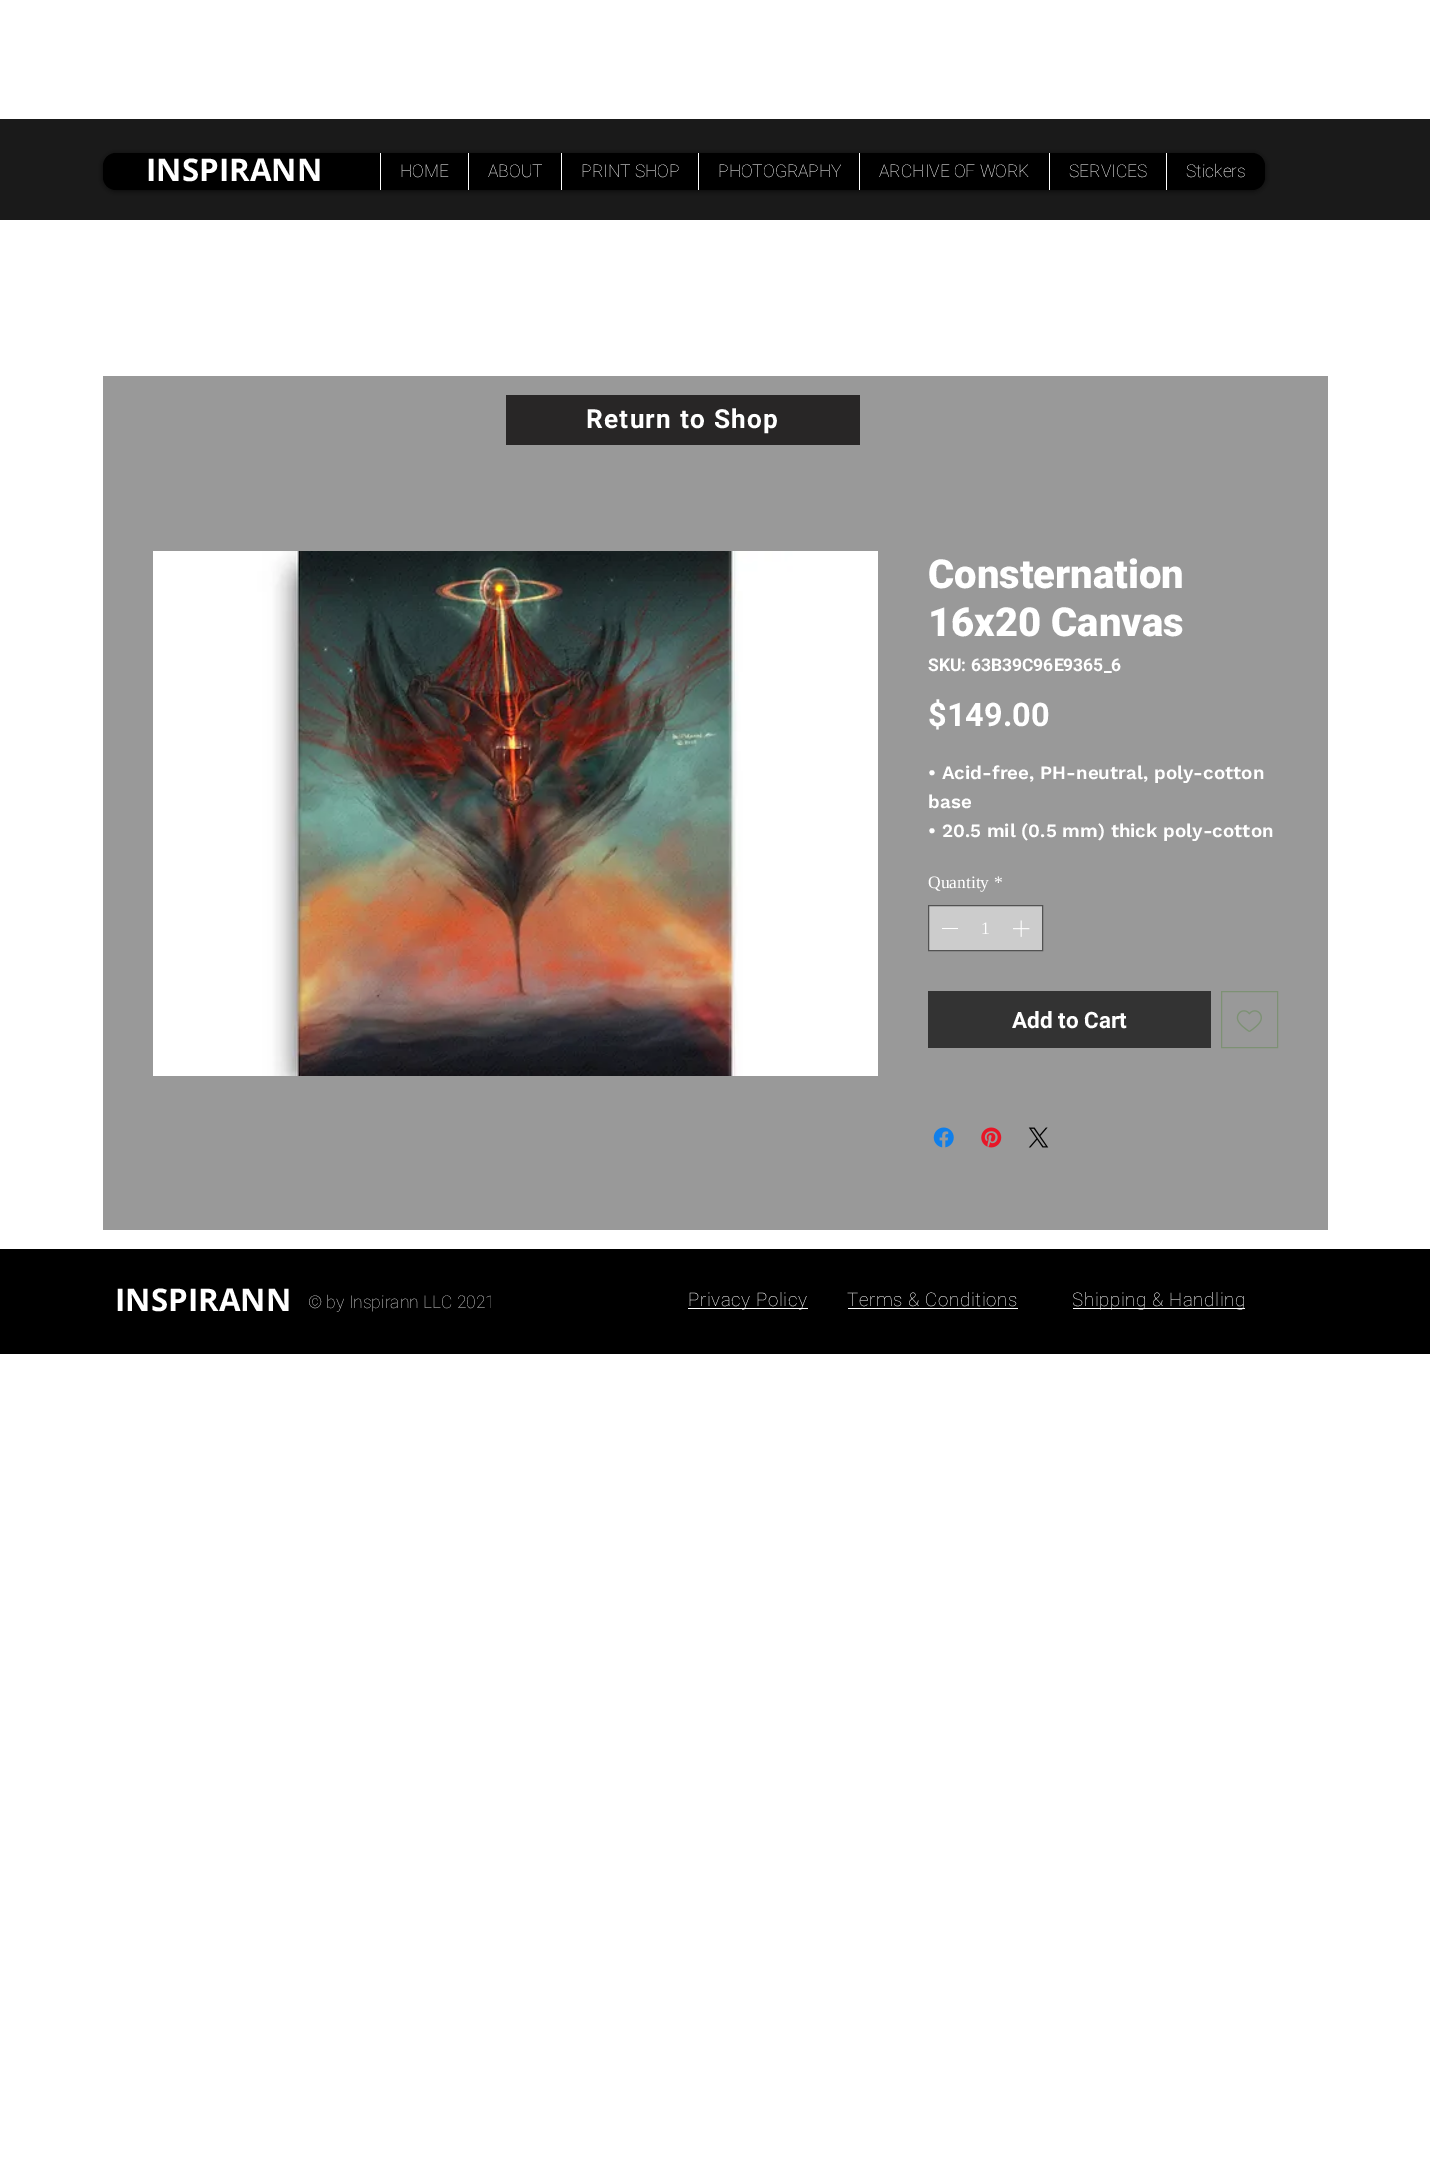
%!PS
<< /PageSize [1430 2167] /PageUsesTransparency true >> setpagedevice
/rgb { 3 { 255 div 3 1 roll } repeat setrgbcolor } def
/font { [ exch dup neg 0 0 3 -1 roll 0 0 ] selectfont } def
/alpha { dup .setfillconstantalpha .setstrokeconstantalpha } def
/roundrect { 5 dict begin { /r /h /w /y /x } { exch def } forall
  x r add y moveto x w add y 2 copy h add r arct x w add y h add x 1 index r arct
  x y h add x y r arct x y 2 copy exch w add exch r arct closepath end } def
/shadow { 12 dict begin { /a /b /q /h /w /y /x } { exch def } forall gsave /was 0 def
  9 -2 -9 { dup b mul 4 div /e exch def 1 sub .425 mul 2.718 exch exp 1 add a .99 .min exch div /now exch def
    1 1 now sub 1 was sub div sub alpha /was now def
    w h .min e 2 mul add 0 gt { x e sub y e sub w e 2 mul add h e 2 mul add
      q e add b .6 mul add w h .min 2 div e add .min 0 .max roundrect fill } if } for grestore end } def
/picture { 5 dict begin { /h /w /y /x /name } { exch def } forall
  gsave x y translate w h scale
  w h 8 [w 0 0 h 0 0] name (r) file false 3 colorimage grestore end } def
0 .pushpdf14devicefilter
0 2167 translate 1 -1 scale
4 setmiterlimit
255 255 255 rgb
0 0 1430 2167 rectfill
26 26 26 rgb
0 119 1430 101 rectfill
0 0 0 rgb
103 154 1162 37 13 2.5 0.6 shadow
103 153 1162 37 13 roundrect fill
[
  [380 153 1 37 255 255 255]
  [468 153 1 37 255 255 255]
  [561 153 1 37 255 255 255]
  [698 153 1 37 255 255 255]
  [859 153 1 37 255 255 255]
  [1049 153 1 37 255 255 255]
  [1166 153 1 37 255 255 255]
  [103 376 1225 854 153 153 153]
  [506 395 354 50 40 38 38]
] { aload pop rgb rectfill } forall
(img/1.rgb) 153 551 725 525 picture
204 204 204 rgb
928.5 905.5 moveto 1042.5 905.5 lineto 1042.5 950.5 lineto 928.5 950.5 lineto closepath gsave fill grestore
82 82 82 rgb
stroke
255 255 255 rgb
942 928 16 1 rectfill
(img/2.rgb) 1013 920 17 17 picture
51 51 51 rgb
928 991 283 57 rectfill
125 145 116 rgb
1221.5 991.5 56 56 rectstroke
(img/3.rgb) 1236 1010 26 22 picture
(img/4.rgb) 933 1127 21 21 picture
(img/5.rgb) 981 1127 21 21 picture
(img/6.rgb) 1028 1127 21 21 picture
[
  [0 1249 1430 105 0 0 0]
  [688 1308 120 1 255 255 255]
  [848 1308 170 1 255 255 255]
  [1073 1308 172 1 255 255 255]
] { aload pop rgb rectfill } forall
/OpenSans-Bold 31.25 font
146 181 moveto (INSPIRANN) show
/Roboto-Thin 17.5 font
[
  [(HOME) 400 177]
  [(ABOUT) 488 177]
  [(PRINT SHOP) 581 177]
  [(PHOTOGRAPHY) 718 177]
  [(ARCHIVE OF WORK) 879 177]
  [(SERVICES) 1069 177]
  [(Stickers) 1186 177]
] { aload pop moveto show } forall
/Roboto-Bold 26.25 font
586 428 moveto 1.25 0 (Return to Shop) ashow
/Roboto-Black 40 font
928 588 moveto (Consternation) show
928 636 moveto (16x20 Canvas) show
/Roboto-Bold 17.5 font
928 671 moveto (SKU: 63B39C96E9365_6) show
/Roboto-Bold 32.5 font
928 726 moveto ($149.00) show
/WorkSans-SemiBold 18.75 font
[
  [(• Acid-free, PH-neutral, poly-cotton) 928 779]
  [(base) 928 808]
  [(• 20.5 mil \(0.5 mm\) thick poly-cotton) 928 837]
] { aload pop moveto show } forall
/LiberationSerif-Regular 17.5 font
[
  [(Quantity) 928 888]
  [(*) 994 888]
  [(1) 981 934]
] { aload pop moveto show } forall
/Roboto-Bold 22.5 font
1012 1028 moveto (Add to Cart) show
/OpenSans-Bold 31.25 font
115 1311 moveto (INSPIRANN) show
/Roboto-Thin 17.5 font
204 204 204 rgb
308 1308 moveto (© by Inspirann LLC 2021) show
/Roboto-Thin 18.75 font
255 255 255 rgb
688 1306 moveto 0.6 0 (Privacy Policy) ashow
847 1306 moveto 0.6 0 (Terms & Conditions) ashow
1072 1306 moveto 0.6 0 (Shipping & Handling) ashow
.poppdf14devicefilter showpage
